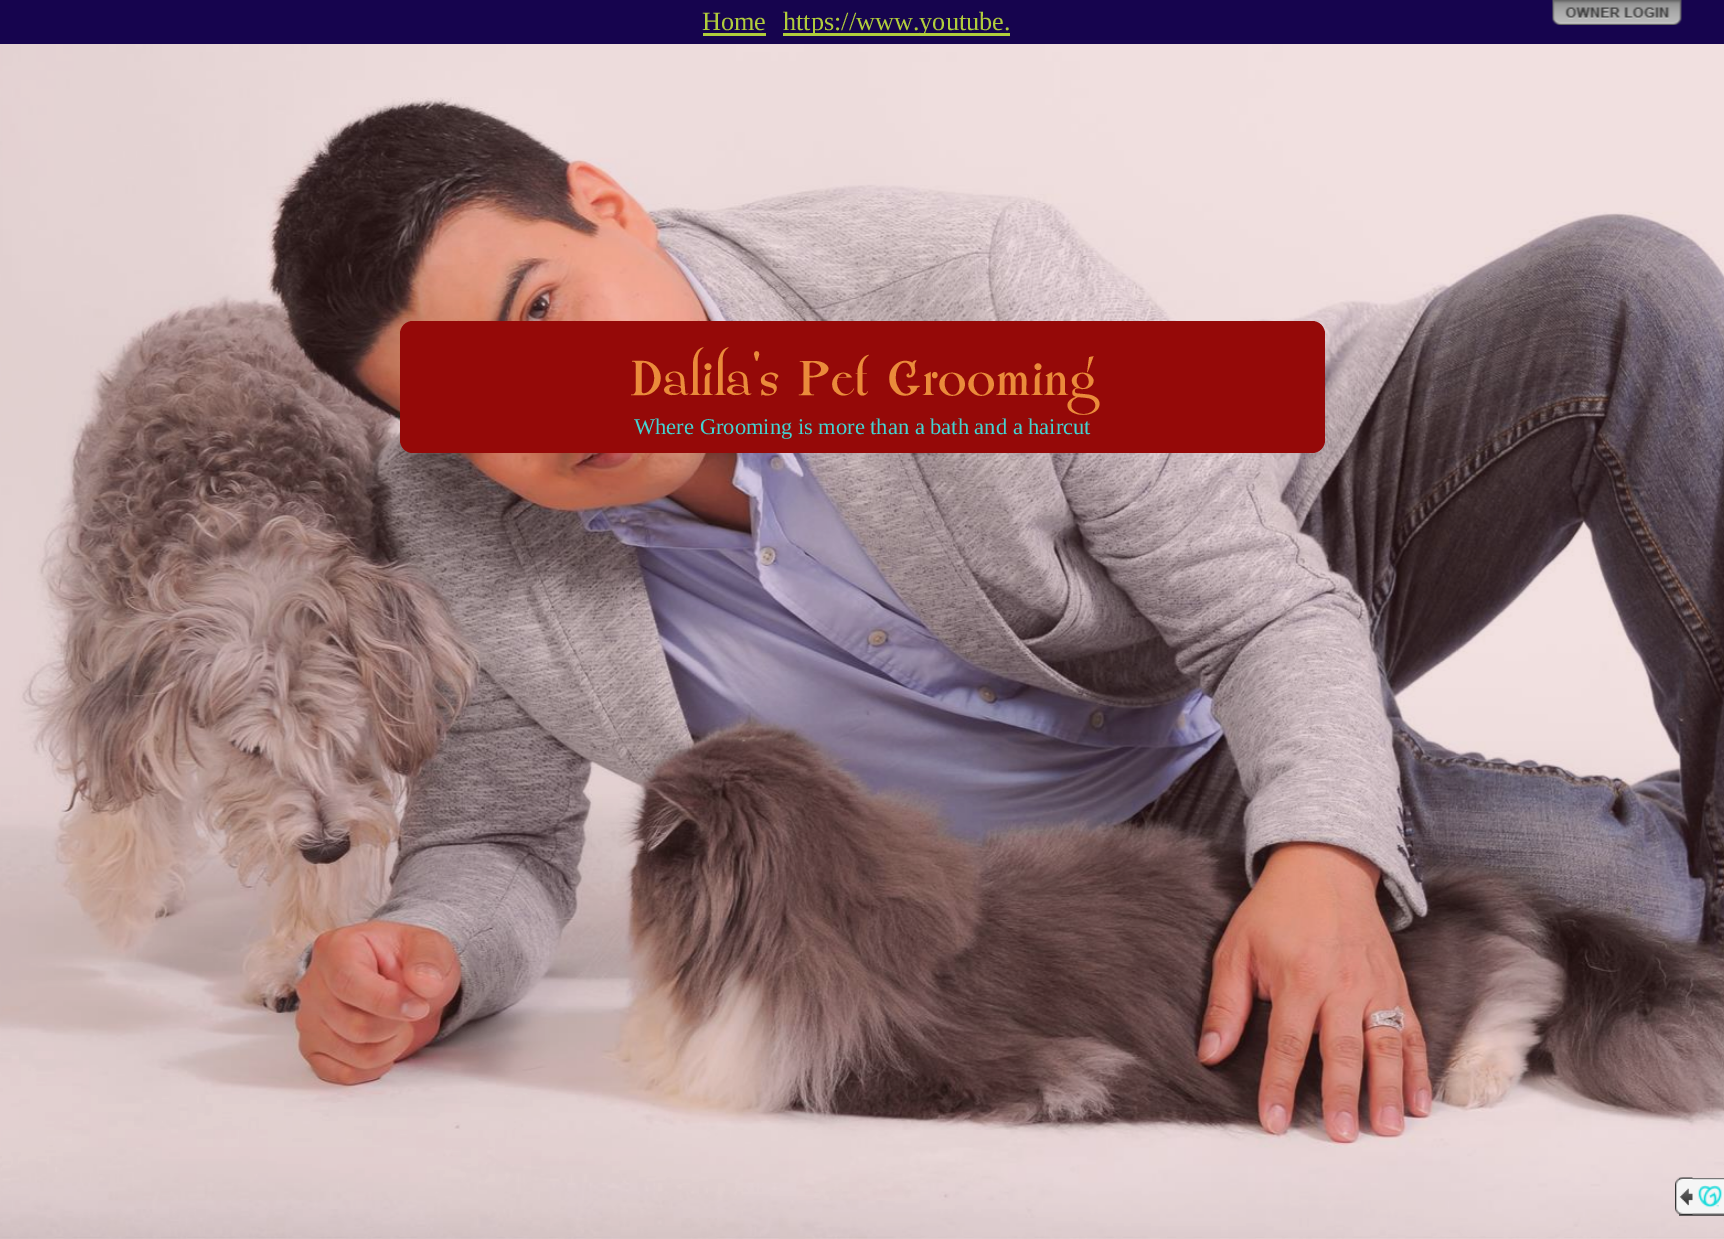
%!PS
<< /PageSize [1724 1239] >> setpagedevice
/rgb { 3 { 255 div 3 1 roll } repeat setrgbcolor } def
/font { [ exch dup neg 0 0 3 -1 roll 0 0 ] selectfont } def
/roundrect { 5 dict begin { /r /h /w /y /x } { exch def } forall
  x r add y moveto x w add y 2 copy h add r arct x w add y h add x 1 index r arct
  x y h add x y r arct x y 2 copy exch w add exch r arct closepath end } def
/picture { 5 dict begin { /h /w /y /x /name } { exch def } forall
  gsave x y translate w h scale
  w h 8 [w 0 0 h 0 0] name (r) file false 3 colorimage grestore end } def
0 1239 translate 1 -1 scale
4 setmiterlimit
255 255 255 rgb
0 0 1724 1239 rectfill
[
  [0 0 1724 44 22 4 78]
  [703 33 63 3 177 205 60]
  [783 33 227 3 177 205 60]
] { aload pop rgb rectfill } forall
(img/1.rgb) 1552 0 130 25 picture
(img/6.rgb) 0 44 1724 1195 picture
149 9 8 rgb
400 321 925 132 13 roundrect fill
(img/2.rgb) 1679 1178 45 38 picture
(img/3.rgb) 1679 1214 45 2 picture
(img/4.rgb) 1675 1177 18 38 picture
(img/5.rgb) 1697 1185 26 23 picture
/LiberationSerif-Regular 26.25 font
177 205 60 rgb
702 30 moveto (Home) show
783 30 moveto (https://www.youtube.) show
/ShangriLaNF-Regular 68.75 font
234 139 59 rgb
629 395 moveto (Dalila's Pet Grooming) show
/LiberationSerif-Regular 22.5 font
68 211 209 rgb
634 434 moveto (Where Grooming is more than a bath and a haircut) show
showpage
